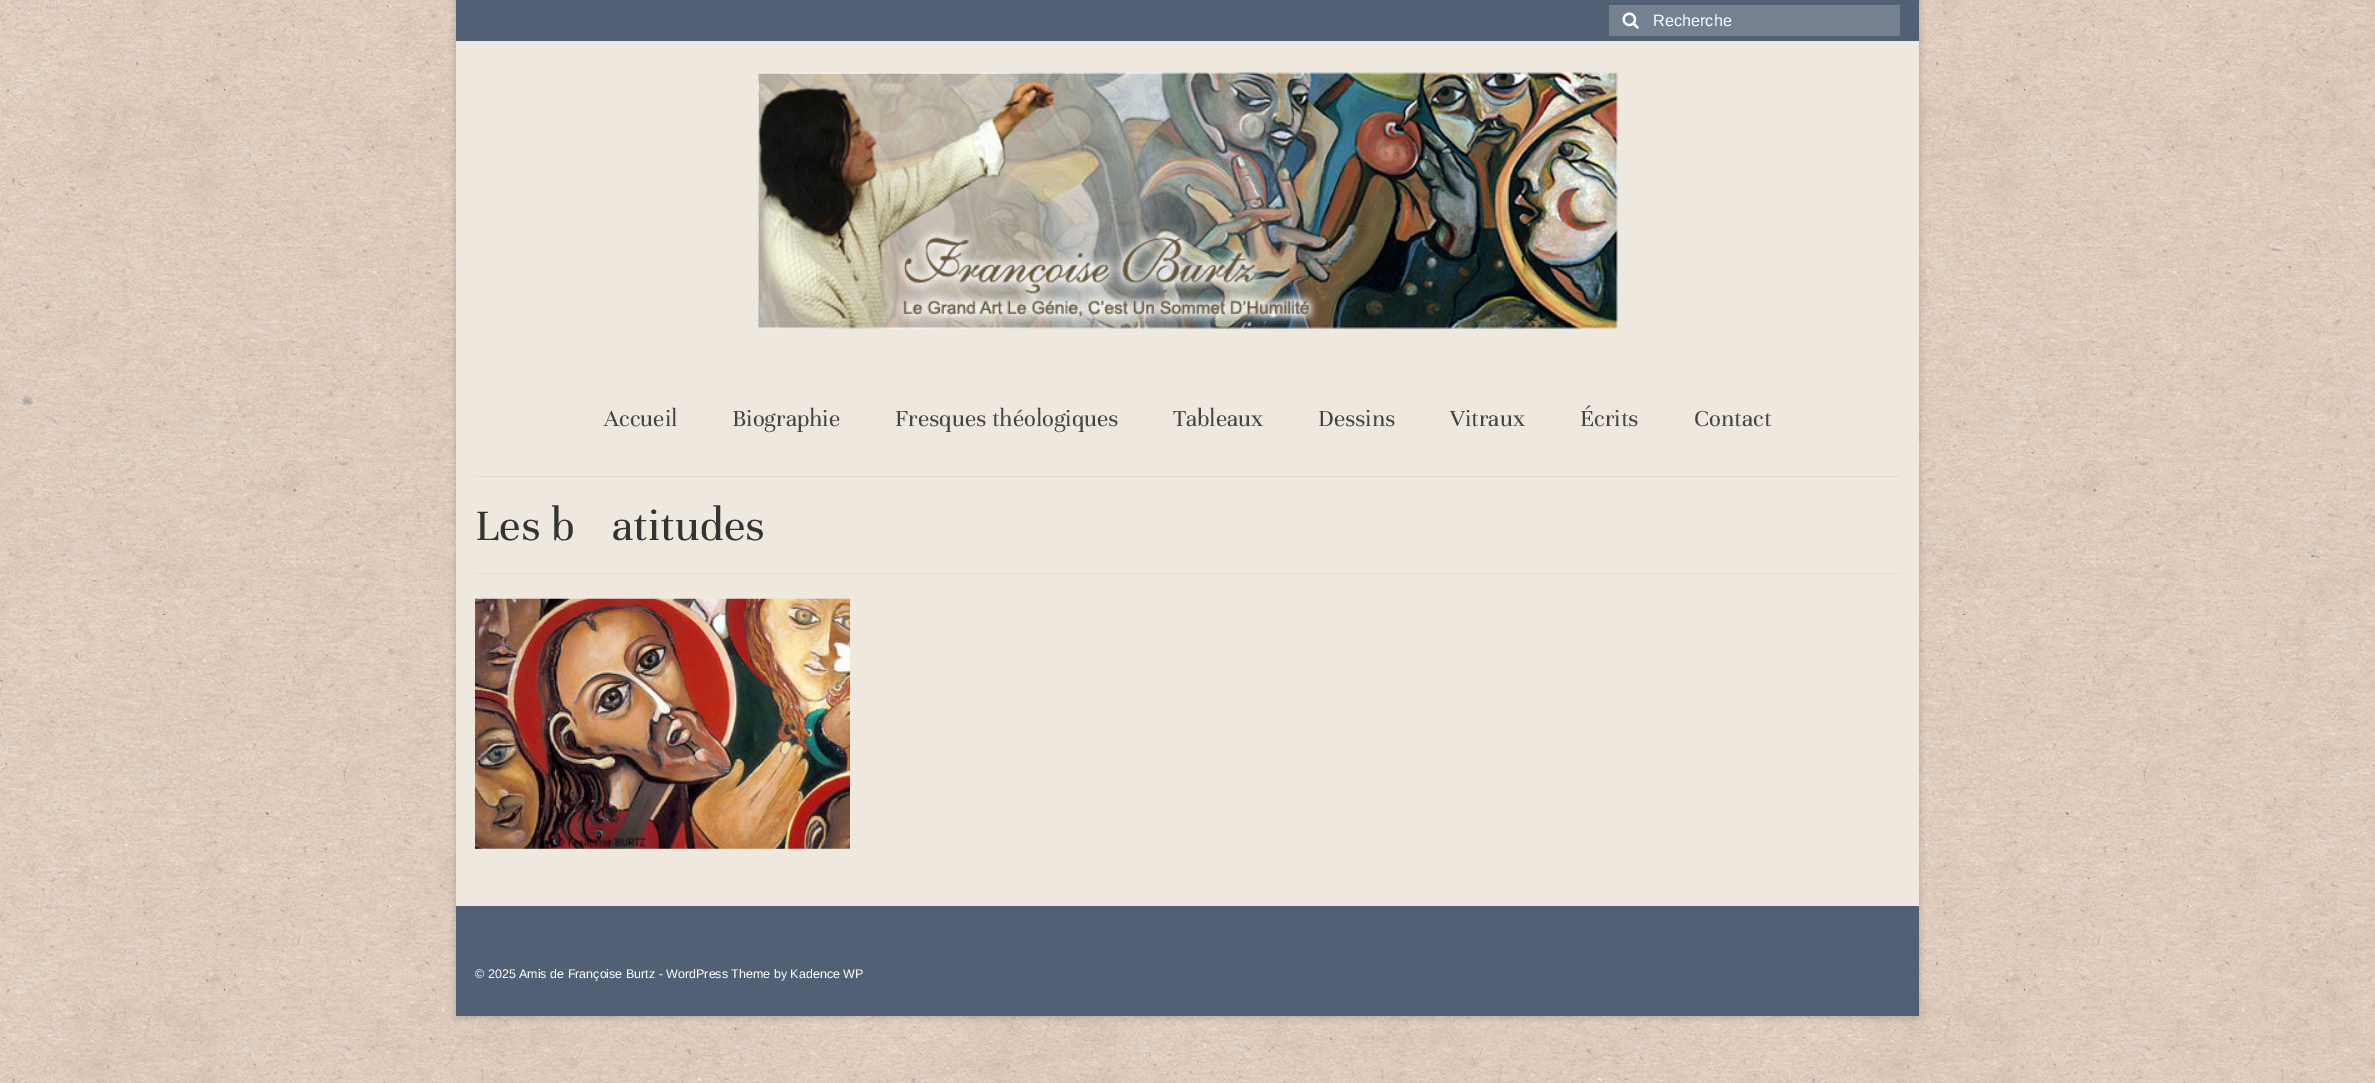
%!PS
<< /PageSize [2375 1083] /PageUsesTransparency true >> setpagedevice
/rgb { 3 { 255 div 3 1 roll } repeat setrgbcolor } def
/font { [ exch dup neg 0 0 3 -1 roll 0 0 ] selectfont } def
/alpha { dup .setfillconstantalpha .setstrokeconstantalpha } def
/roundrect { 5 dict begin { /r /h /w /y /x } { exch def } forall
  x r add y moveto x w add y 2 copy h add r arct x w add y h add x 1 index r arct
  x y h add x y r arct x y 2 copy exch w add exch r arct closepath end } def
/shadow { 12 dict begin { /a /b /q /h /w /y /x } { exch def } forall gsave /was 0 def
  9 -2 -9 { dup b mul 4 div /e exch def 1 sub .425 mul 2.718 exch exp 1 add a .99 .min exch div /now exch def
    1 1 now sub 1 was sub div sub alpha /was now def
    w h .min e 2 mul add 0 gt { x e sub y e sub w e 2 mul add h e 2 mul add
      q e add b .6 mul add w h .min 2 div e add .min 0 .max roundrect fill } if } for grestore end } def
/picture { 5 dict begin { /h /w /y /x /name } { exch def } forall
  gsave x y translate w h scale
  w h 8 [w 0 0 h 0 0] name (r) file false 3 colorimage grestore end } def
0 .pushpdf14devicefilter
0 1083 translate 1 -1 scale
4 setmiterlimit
255 255 255 rgb
0 0 2375 1083 rectfill
(img/1.rgb) 0 0 2375 1083 picture
0 0 0 rgb
455 -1 1465 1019 0 3 0.16 shadow
[
  [456 41 1463 865 238 232 222]
  [456 0 1463 41 82 96 118]
  [1609 5 291 31 117 128 145]
] { aload pop rgb rectfill } forall
(img/2.rgb) 1622 12 17 17 picture
(img/3.rgb) 757 72 861 257 picture
226 220 211 rgb
475 476 1425 1 rectfill
475 573 1425 1 rectfill
(img/4.rgb) 475 598 375 251 picture
82 96 118 rgb
456 906 1463 110 rectfill
/LiberationSans-Regular 16.25 font
255 255 255 rgb
1653 26 moveto (Recherche) show
/Unna-Regular 25 font
68 68 68 rgb
[
  [(Accueil) 604 426]
  [(Biographie) 732 426]
  [(Fresques théologiques) 895 426]
  [(Tableaux) 1173 426]
  [(Dessins) 1318 426]
  [(Vitraux) 1450 426]
  [(Écrits) 1580 426]
  [(Contact) 1694 426]
] { aload pop moveto show } forall
/Unna-Regular 47.5 font
51 51 51 rgb
475 540 moveto (Les b) show
612 540 moveto (atitudes) show
/LiberationSans-Regular 12.5 font
255 255 255 rgb
475 978 moveto (© 2025 Amis de Françoise Burtz - WordPress Theme by Kadence WP) show
.poppdf14devicefilter showpage
